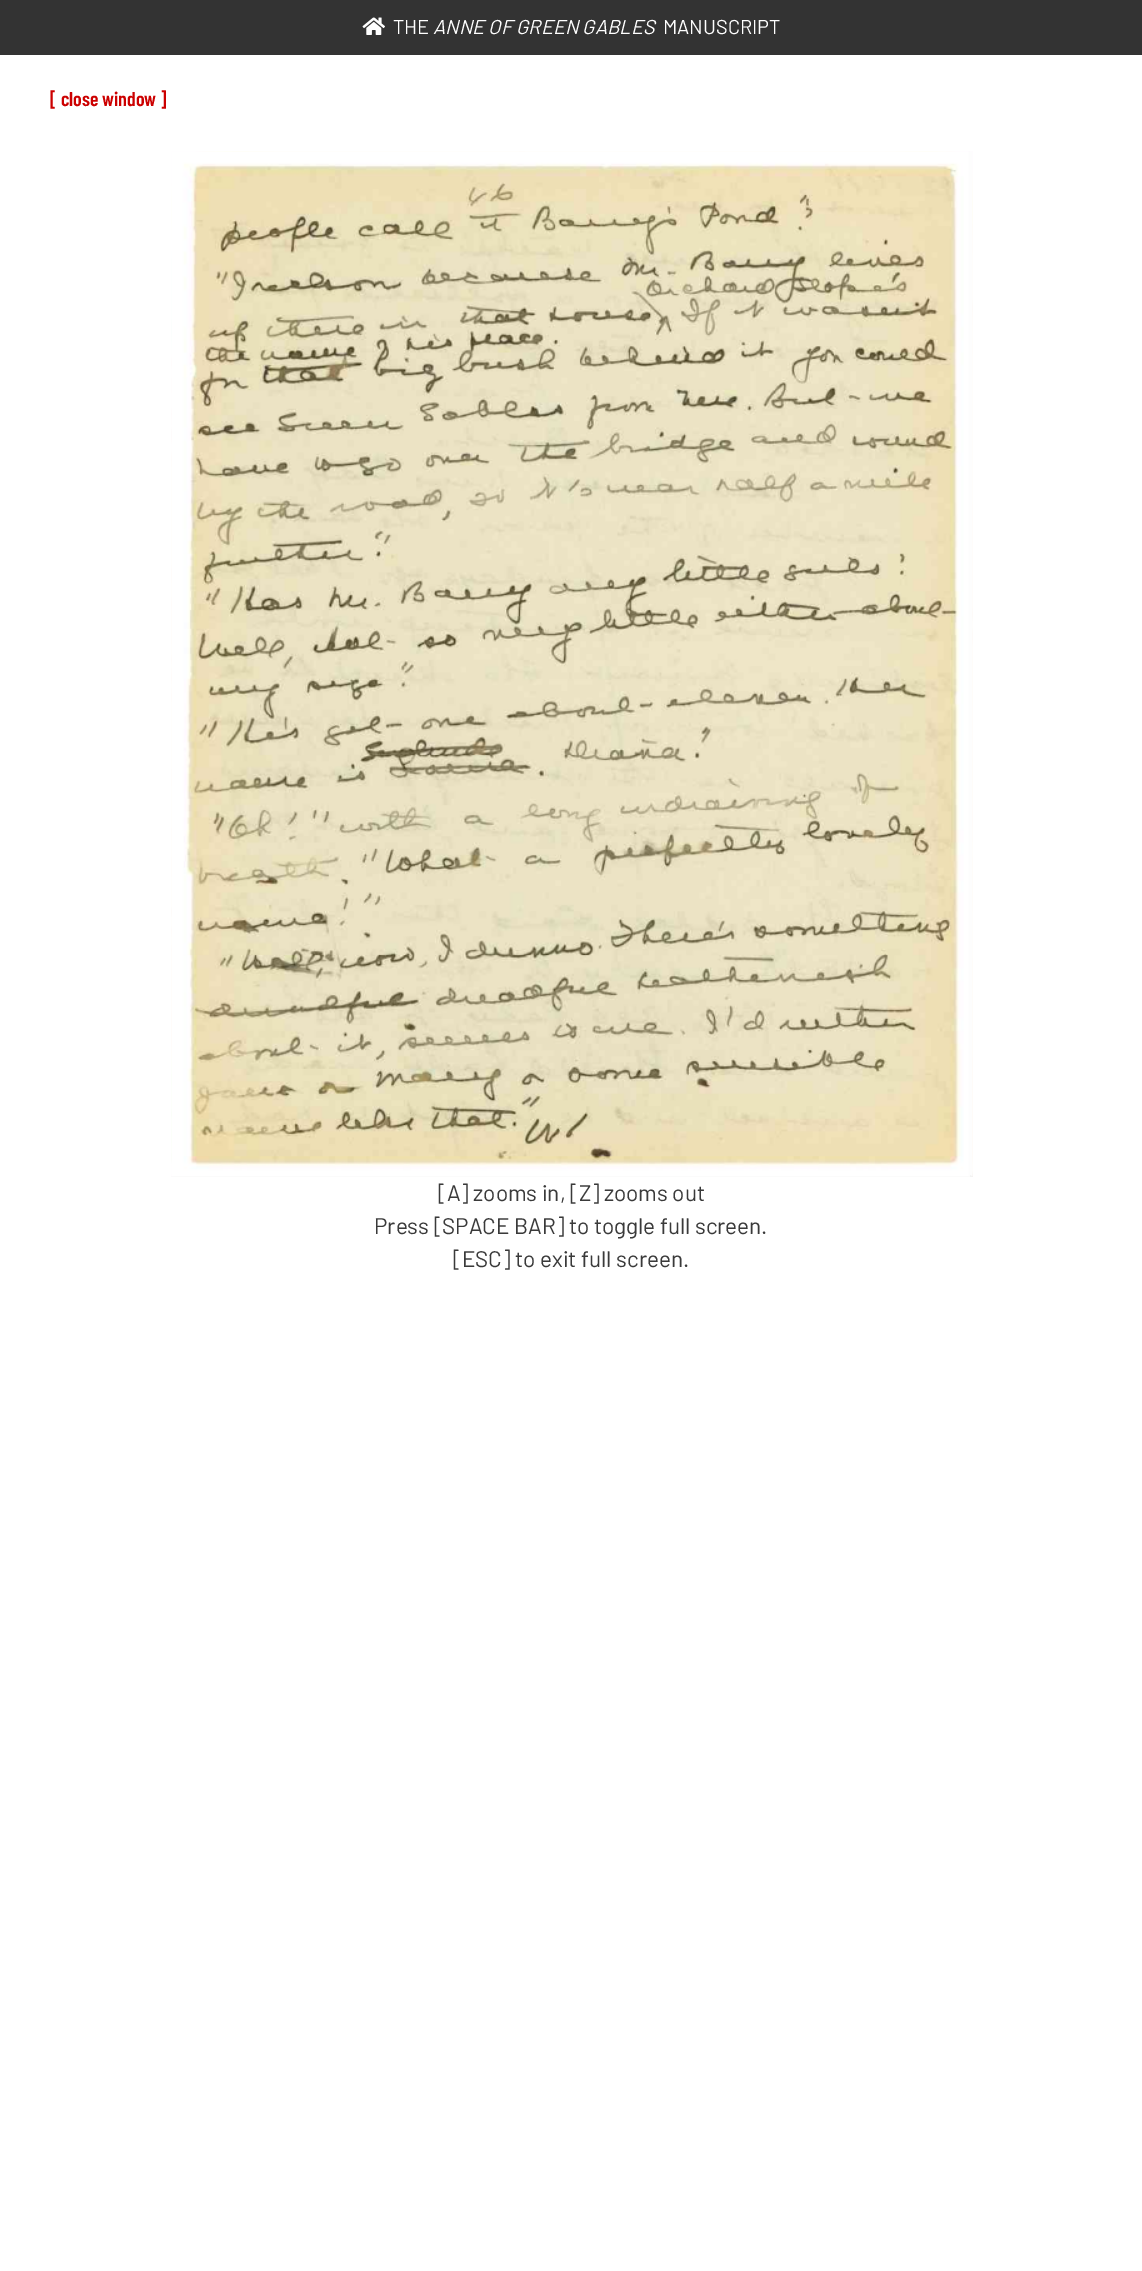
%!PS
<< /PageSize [1142 2271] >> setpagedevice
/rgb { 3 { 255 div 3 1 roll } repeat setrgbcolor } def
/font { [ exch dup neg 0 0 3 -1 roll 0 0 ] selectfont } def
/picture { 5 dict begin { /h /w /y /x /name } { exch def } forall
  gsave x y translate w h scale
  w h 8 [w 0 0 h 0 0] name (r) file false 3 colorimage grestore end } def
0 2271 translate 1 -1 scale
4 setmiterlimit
255 255 255 rgb
0 0 1142 2271 rectfill
51 51 51 rgb
0 0 1142 55 rectfill
(img/1.rgb) 362 17 23 18 picture
(img/2.rgb) 171 151 802 1026 picture
(img/3.rgb) 171 151 802 1026 picture
/Barlow-Regular 20 font
255 255 255 rgb
393 34 moveto (THE) show
/Barlow-Italic 20 font
433 34 moveto (ANNE OF GREEN GABLES) show
/Barlow-Regular 20 font
663 34 moveto (MANUSCRIPT) show
/BarlowCondensed-SemiBold 20 font
204 0 0 rgb
50 106 moveto ([ close window ]) show
/Barlow-Regular 22.5 font
58 58 58 rgb
[
  [([A] zooms in, [Z] zooms out) 438 1201]
  [(Press [SPACE BAR] to toggle full screen.) 374 1234]
  [([ESC] to exit full screen.) 453 1267]
] { aload pop moveto show } forall
showpage
